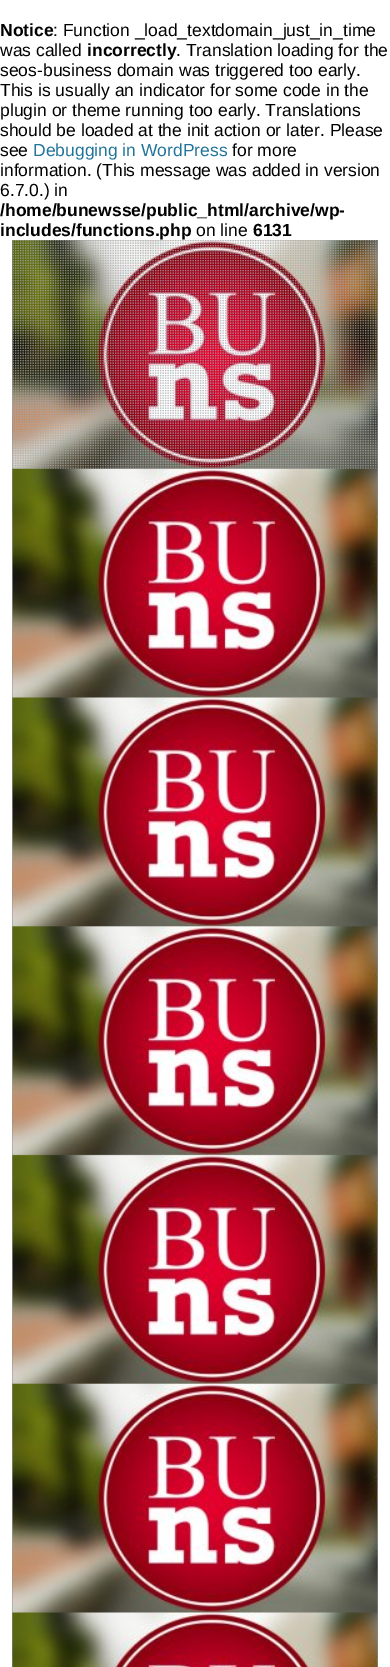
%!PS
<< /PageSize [390 1667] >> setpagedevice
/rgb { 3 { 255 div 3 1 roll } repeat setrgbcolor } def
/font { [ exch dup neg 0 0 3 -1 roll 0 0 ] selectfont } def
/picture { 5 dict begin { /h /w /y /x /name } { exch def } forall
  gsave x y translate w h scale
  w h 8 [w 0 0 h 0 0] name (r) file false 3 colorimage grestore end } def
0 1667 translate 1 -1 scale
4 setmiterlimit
255 255 255 rgb
0 0 390 1667 rectfill
(img/1.rgb) 12 240 366 1427 picture
(img/2.rgb) 12 240 366 1427 picture
(img/3.rgb) 12 240 366 229 picture
/LiberationSans-Bold 17.5 font
0 0 0 rgb
0 36 moveto (Notice) show
/LiberationSans-Regular 17.5 font
53 36 moveto (: Function _load_textdomain_just_in_time) show
0 56 moveto (was called) show
/LiberationSans-Bold 17.5 font
87 56 moveto (incorrectly) show
/LiberationSans-Regular 17.5 font
[
  [(. Translation loading for the) 176 56]
  [(seos-business domain was triggered too early.) 0 76]
  [(This is usually an indicator for some code in the) 0 96]
  [(plugin or theme running too early. Translations) 0 116]
  [(should be loaded at the init action or later. Please) 0 136]
  [(see) 0 156]
] { aload pop moveto show } forall
33 117 155 rgb
33 156 moveto (Debugging in WordPress) show
0 0 0 rgb
[
  [(for more) 232 156]
  [(information. \(This message was added in version) 0 176]
  [(6.7.0.\) in) 0 196]
] { aload pop moveto show } forall
/LiberationSans-Bold 17.5 font
0 216 moveto (/home/bunewsse/public_html/archive/wp-) show
0 236 moveto (includes/functions.php) show
/LiberationSans-Regular 17.5 font
196 236 moveto (on line) show
/LiberationSans-Bold 17.5 font
253 236 moveto (6131) show
showpage
